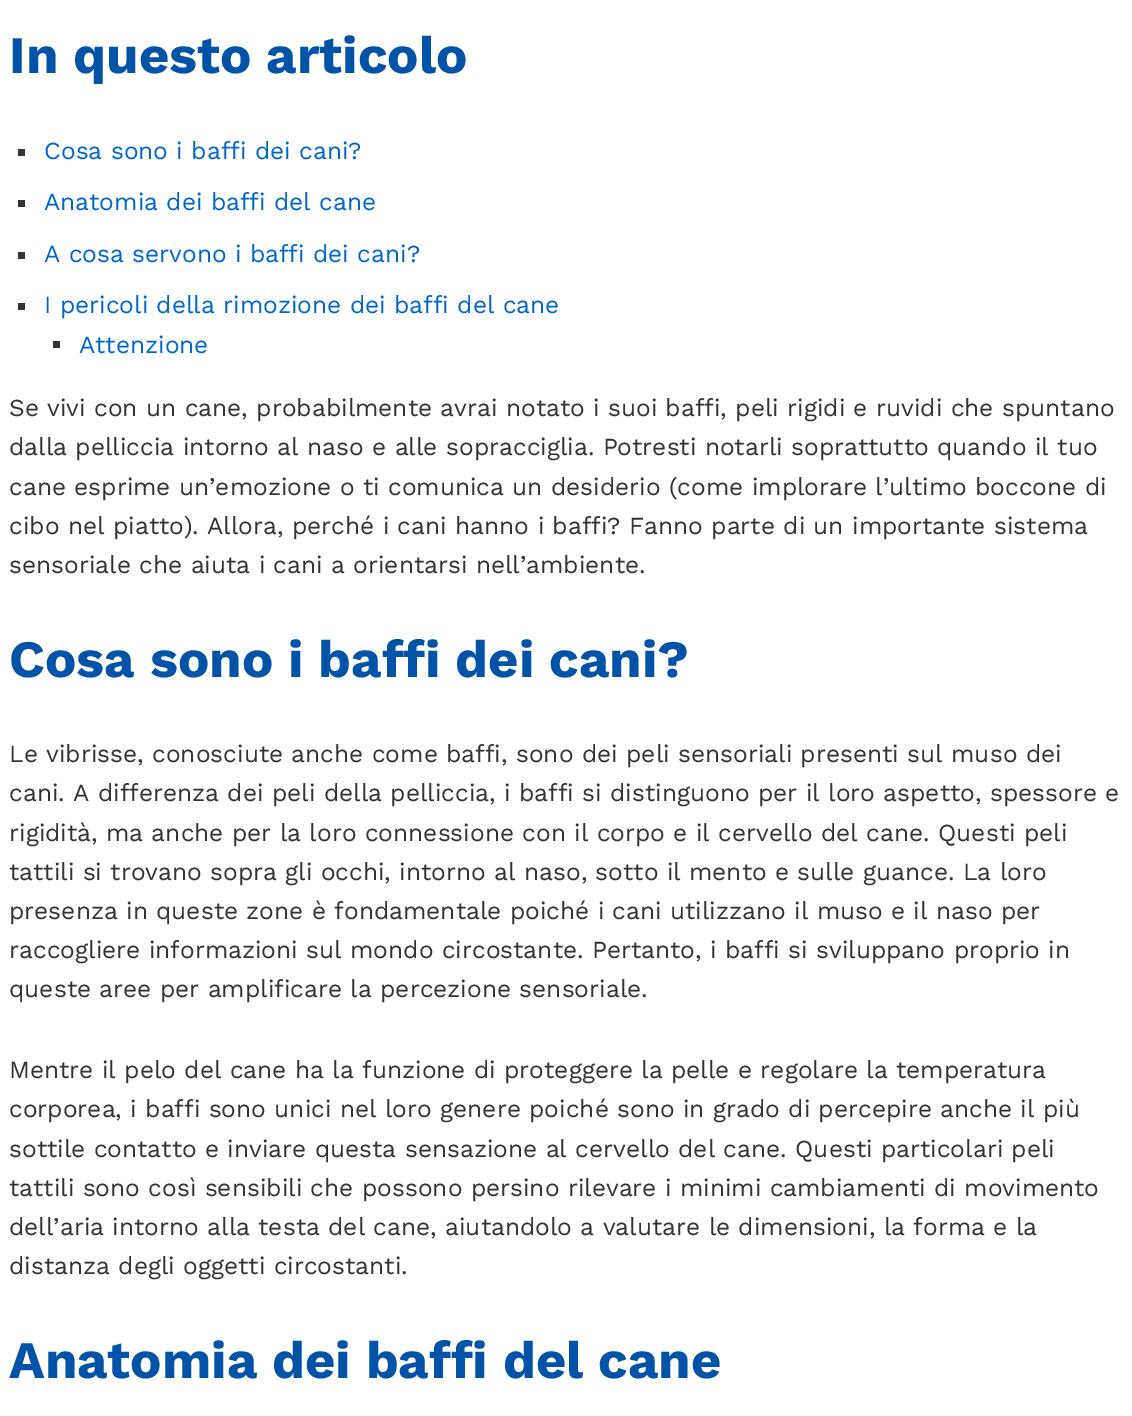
%!PS
<< /PageSize [1132 1416] >> setpagedevice
/rgb { 3 { 255 div 3 1 roll } repeat setrgbcolor } def
/font { [ exch dup neg 0 0 3 -1 roll 0 0 ] selectfont } def
0 1416 translate 1 -1 scale
4 setmiterlimit
255 255 255 rgb
0 0 1132 1416 rectfill
[
  [18 149 7 7 51 51 51]
  [18 200 7 7 51 51 51]
  [18 252 7 7 51 51 51]
  [18 303 7 7 51 51 51]
  [53 341 7 7 51 51 51]
] { aload pop rgb rectfill } forall
/WorkSans-Bold 52.5 font
0 83 166 rgb
9 73 moveto (In questo articolo) show
/WorkSans-Regular 24.5 font
0 102 204 rgb
[
  [(Cosa sono i baffi dei cani?) 44 159]
  [(Anatomia dei baffi del cane) 44 210]
  [(A cosa servono i baffi dei cani?) 44 262]
  [(I pericoli della rimozione dei baffi del cane) 44 313]
  [(Attenzione) 79 353]
] { aload pop moveto show } forall
51 51 51 rgb
[
  [(Se vivi con un cane, probabilmente avrai notato i suoi baffi, peli rigidi e ruvidi che spuntano) 9 416]
  [(dalla pelliccia intorno al naso e alle sopracciglia. Potresti notarli soprattutto quando il tuo) 9 455]
  [(cane esprime un’emozione o ti comunica un desiderio \(come implorare l’ultimo boccone di) 9 495]
  [(cibo nel piatto\). Allora, perché i cani hanno i baffi? Fanno parte di un importante sistema) 9 534]
  [(sensoriale che aiuta i cani a orientarsi nell’ambiente.) 9 573]
] { aload pop moveto show } forall
/WorkSans-Bold 52.5 font
0 83 166 rgb
9 677 moveto (Cosa sono i baffi dei cani?) show
/WorkSans-Regular 24.5 font
51 51 51 rgb
[
  [(Le vibrisse, conosciute anche come baffi, sono dei peli sensoriali presenti sul muso dei) 9 762]
  [(cani. A differenza dei peli della pelliccia, i baffi si distinguono per il loro aspetto, spessore e) 9 801]
  [(rigidità, ma anche per la loro connessione con il corpo e il cervello del cane. Questi peli) 9 841]
  [(tattili si trovano sopra gli occhi, intorno al naso, sotto il mento e sulle guance. La loro) 9 880]
  [(presenza in queste zone è fondamentale poiché i cani utilizzano il muso e il naso per) 9 919]
  [(raccogliere informazioni sul mondo circostante. Pertanto, i baffi si sviluppano proprio in) 9 958]
  [(queste aree per amplificare la percezione sensoriale.) 9 997]
  [(Mentre il pelo del cane ha la funzione di proteggere la pelle e regolare la temperatura) 9 1078]
  [(corporea, i baffi sono unici nel loro genere poiché sono in grado di percepire anche il più) 9 1117]
  [(sottile contatto e inviare questa sensazione al cervello del cane. Questi particolari peli) 9 1157]
  [(tattili sono così sensibili che possono persino rilevare i minimi cambiamenti di movimento) 9 1196]
  [(dell’aria intorno alla testa del cane, aiutandolo a valutare le dimensioni, la forma e la) 9 1235]
  [(distanza degli oggetti circostanti.) 9 1274]
] { aload pop moveto show } forall
/WorkSans-Bold 52.5 font
0 83 166 rgb
9 1378 moveto (Anatomia dei baffi del cane) show
showpage
